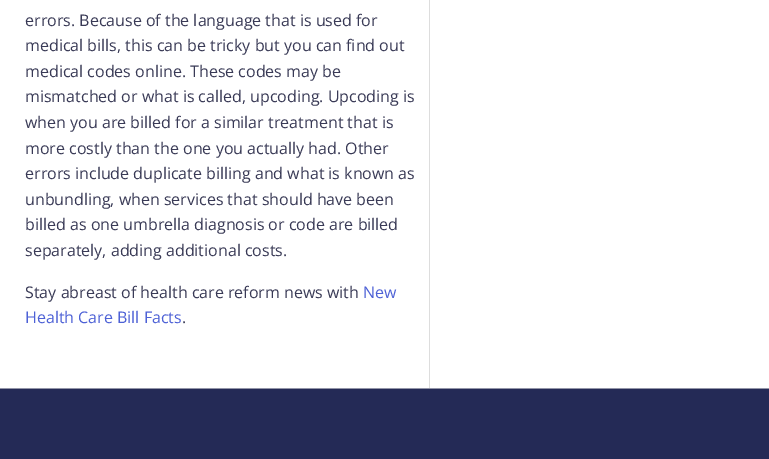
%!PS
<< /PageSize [769 459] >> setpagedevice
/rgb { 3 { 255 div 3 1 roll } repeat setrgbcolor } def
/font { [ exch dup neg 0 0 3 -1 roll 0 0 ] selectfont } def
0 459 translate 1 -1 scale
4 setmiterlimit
255 255 255 rgb
0 0 769 459 rectfill
[
  [429 0 1 388 221 221 221]
  [0 389 769 70 36 42 86]
  [0 388 769 1 147 149 168]
] { aload pop rgb rectfill } forall
/OpenSans-Regular 16 font
57 58 86 rgb
[
  [(errors. Because of the language that is used for) 25 26]
  [(medical bills, this can be tricky but you can find out) 25 51]
  [(medical codes online. These codes may be) 25 77]
  [(mismatched or what is called, upcoding. Upcoding is) 25 102]
  [(when you are billed for a similar treatment that is) 25 128]
  [(more costly than the one you actually had. Other) 25 154]
  [(errors include duplicate billing and what is known as) 25 179]
  [(unbundling, when services that should have been) 25 205]
  [(billed as one umbrella diagnosis or code are billed) 25 230]
  [(separately, adding additional costs.) 25 256]
  [(Stay abreast of health care reform news with) 25 298]
] { aload pop moveto show } forall
77 97 214 rgb
363 298 moveto (New) show
25 323 moveto (Health Care Bill Facts) show
57 58 86 rgb
182 323 moveto (.) show
showpage
